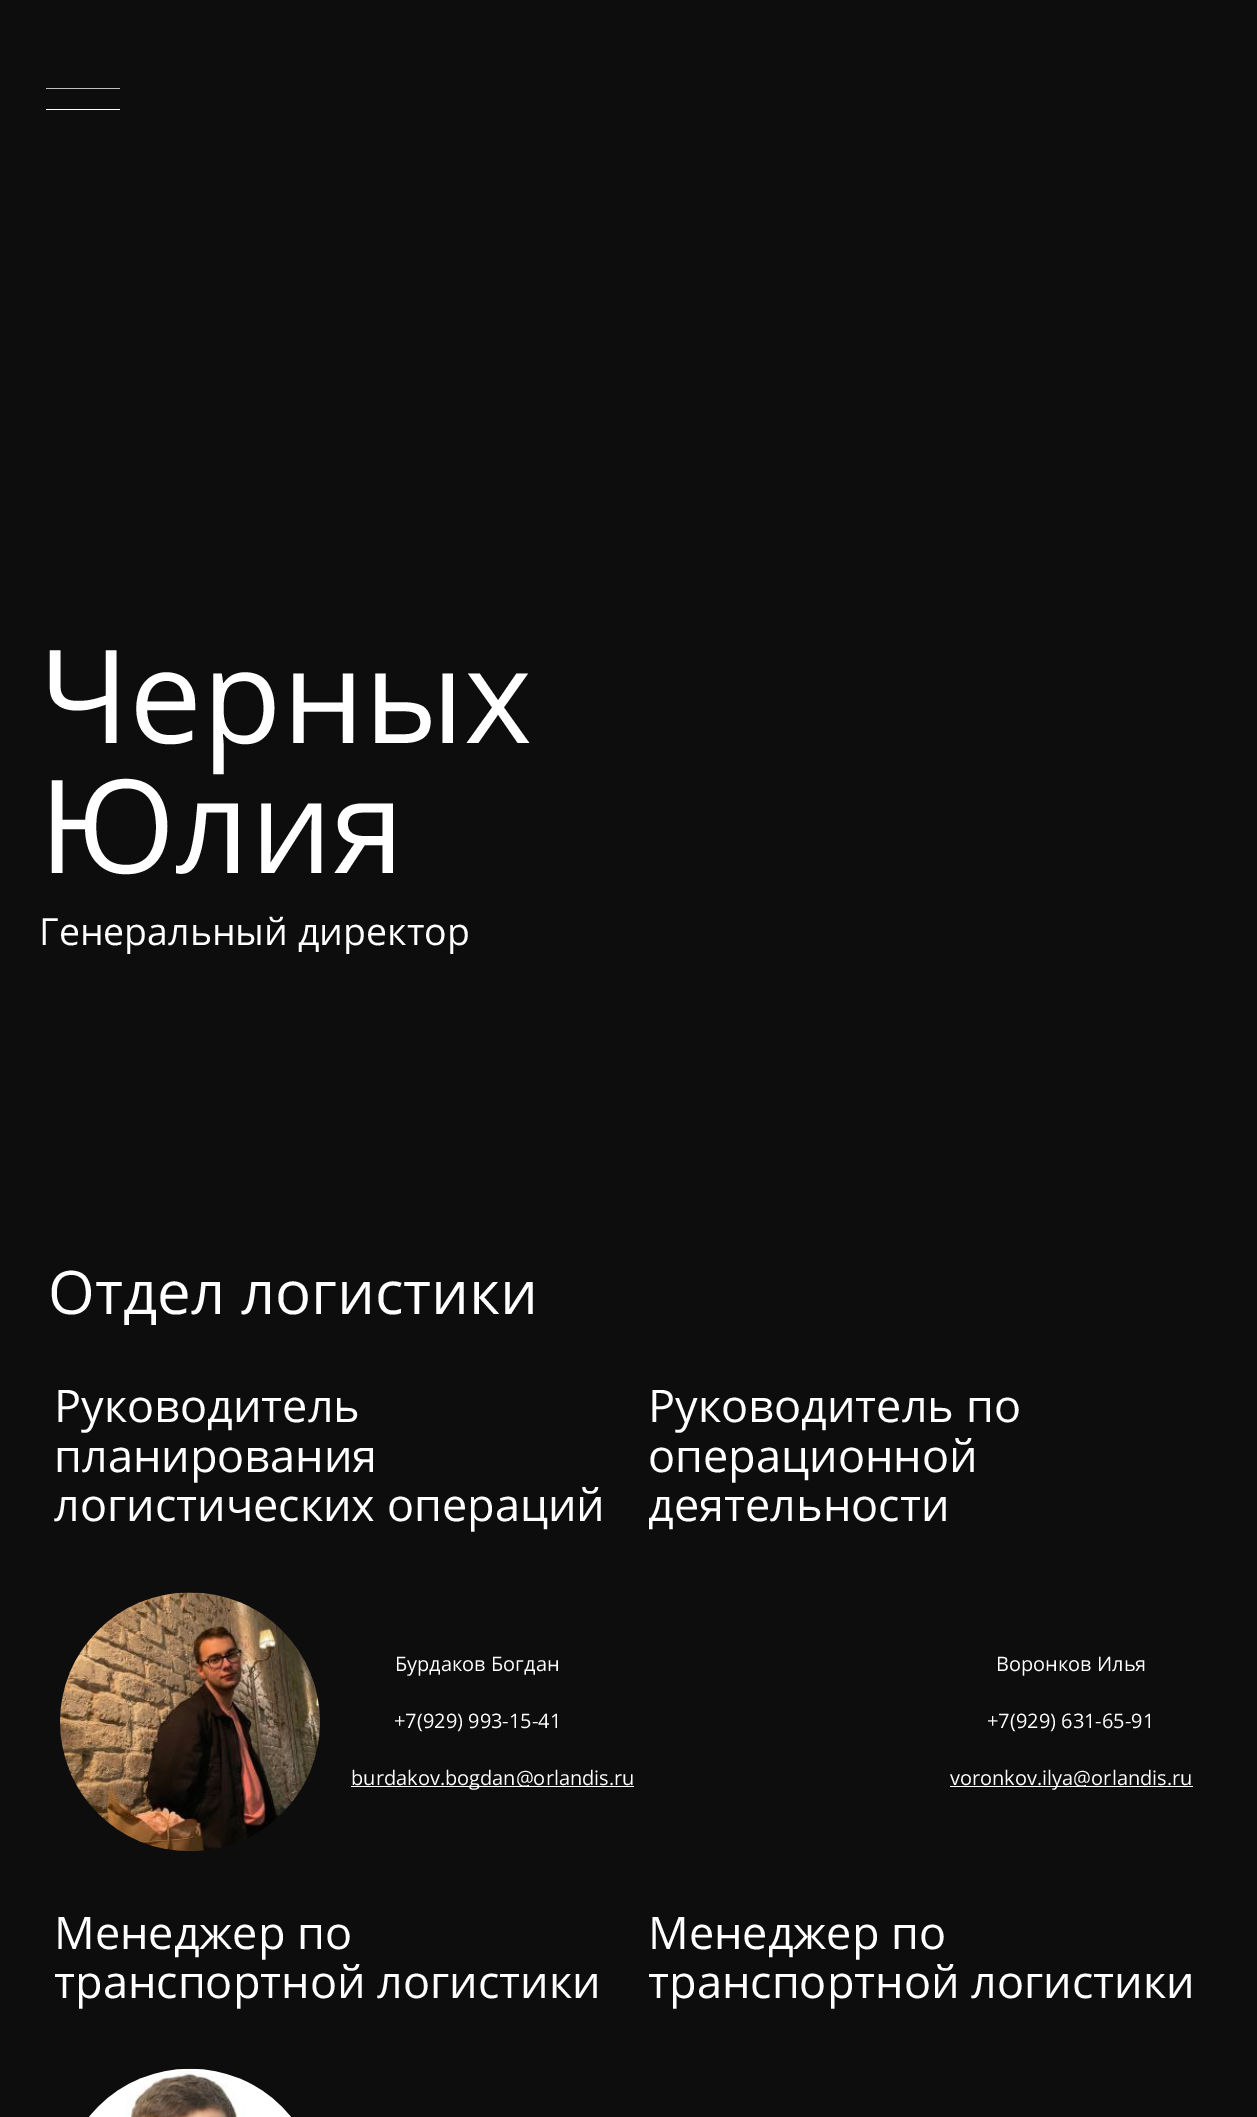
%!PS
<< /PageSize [1257 2117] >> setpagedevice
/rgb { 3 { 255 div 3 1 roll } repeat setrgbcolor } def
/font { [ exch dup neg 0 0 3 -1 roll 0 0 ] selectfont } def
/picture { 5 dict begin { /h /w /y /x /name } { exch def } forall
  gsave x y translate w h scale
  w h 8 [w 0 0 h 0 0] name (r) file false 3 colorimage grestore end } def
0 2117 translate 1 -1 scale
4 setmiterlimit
13 13 13 rgb
0 0 1257 2117 rectfill
gsave
46 88 74 22 rectclip
255 255 255 rgb
1.2 setlinewidth
46 88 moveto 120 88 lineto stroke
grestore
255 255 255 rgb
46 109 74 1 rectfill
(img/1.rgb) 60 1592 260 260 picture
351 1786 283 1 rectfill
950 1786 243 1 rectfill
(img/2.rgb) 89 2068 202 49 picture
/OpenSans-Regular 130 font
39 743 moveto (Черных) show
39 873 moveto (Юлия) show
/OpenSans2-Regular 37.5 font
39 945 moveto (Генеральный директор) show
/OpenSans-Regular 60 font
48 1314 moveto (Отдел логистики) show
/OpenSans-Regular 45 font
[
  [(Руководитель) 54 1422]
  [(планирования) 54 1472]
  [(логистических операций) 54 1521]
] { aload pop moveto show } forall
/OpenSans2-Regular 20 font
[
  [(Бурдаков Богдан) 395 1671]
  [(+7\(929\) 993-15-41) 394 1728]
  [(burdakov.bogdan@orlandis.ru) 351 1785]
] { aload pop moveto show } forall
/OpenSans-Regular 45 font
[
  [(Руководитель по) 648 1422]
  [(операционной) 648 1472]
  [(деятельности) 648 1521]
] { aload pop moveto show } forall
/OpenSans2-Regular 20 font
[
  [(Воронков Илья) 996 1671]
  [(+7\(929\) 631-65-91) 987 1728]
  [(voronkov.ilya@orlandis.ru) 950 1785]
] { aload pop moveto show } forall
/OpenSans-Regular 45 font
[
  [(Менеджер по) 54 1949]
  [(транспортной логистики) 54 1998]
  [(Менеджер по) 648 1949]
  [(транспортной логистики) 648 1998]
] { aload pop moveto show } forall
showpage
